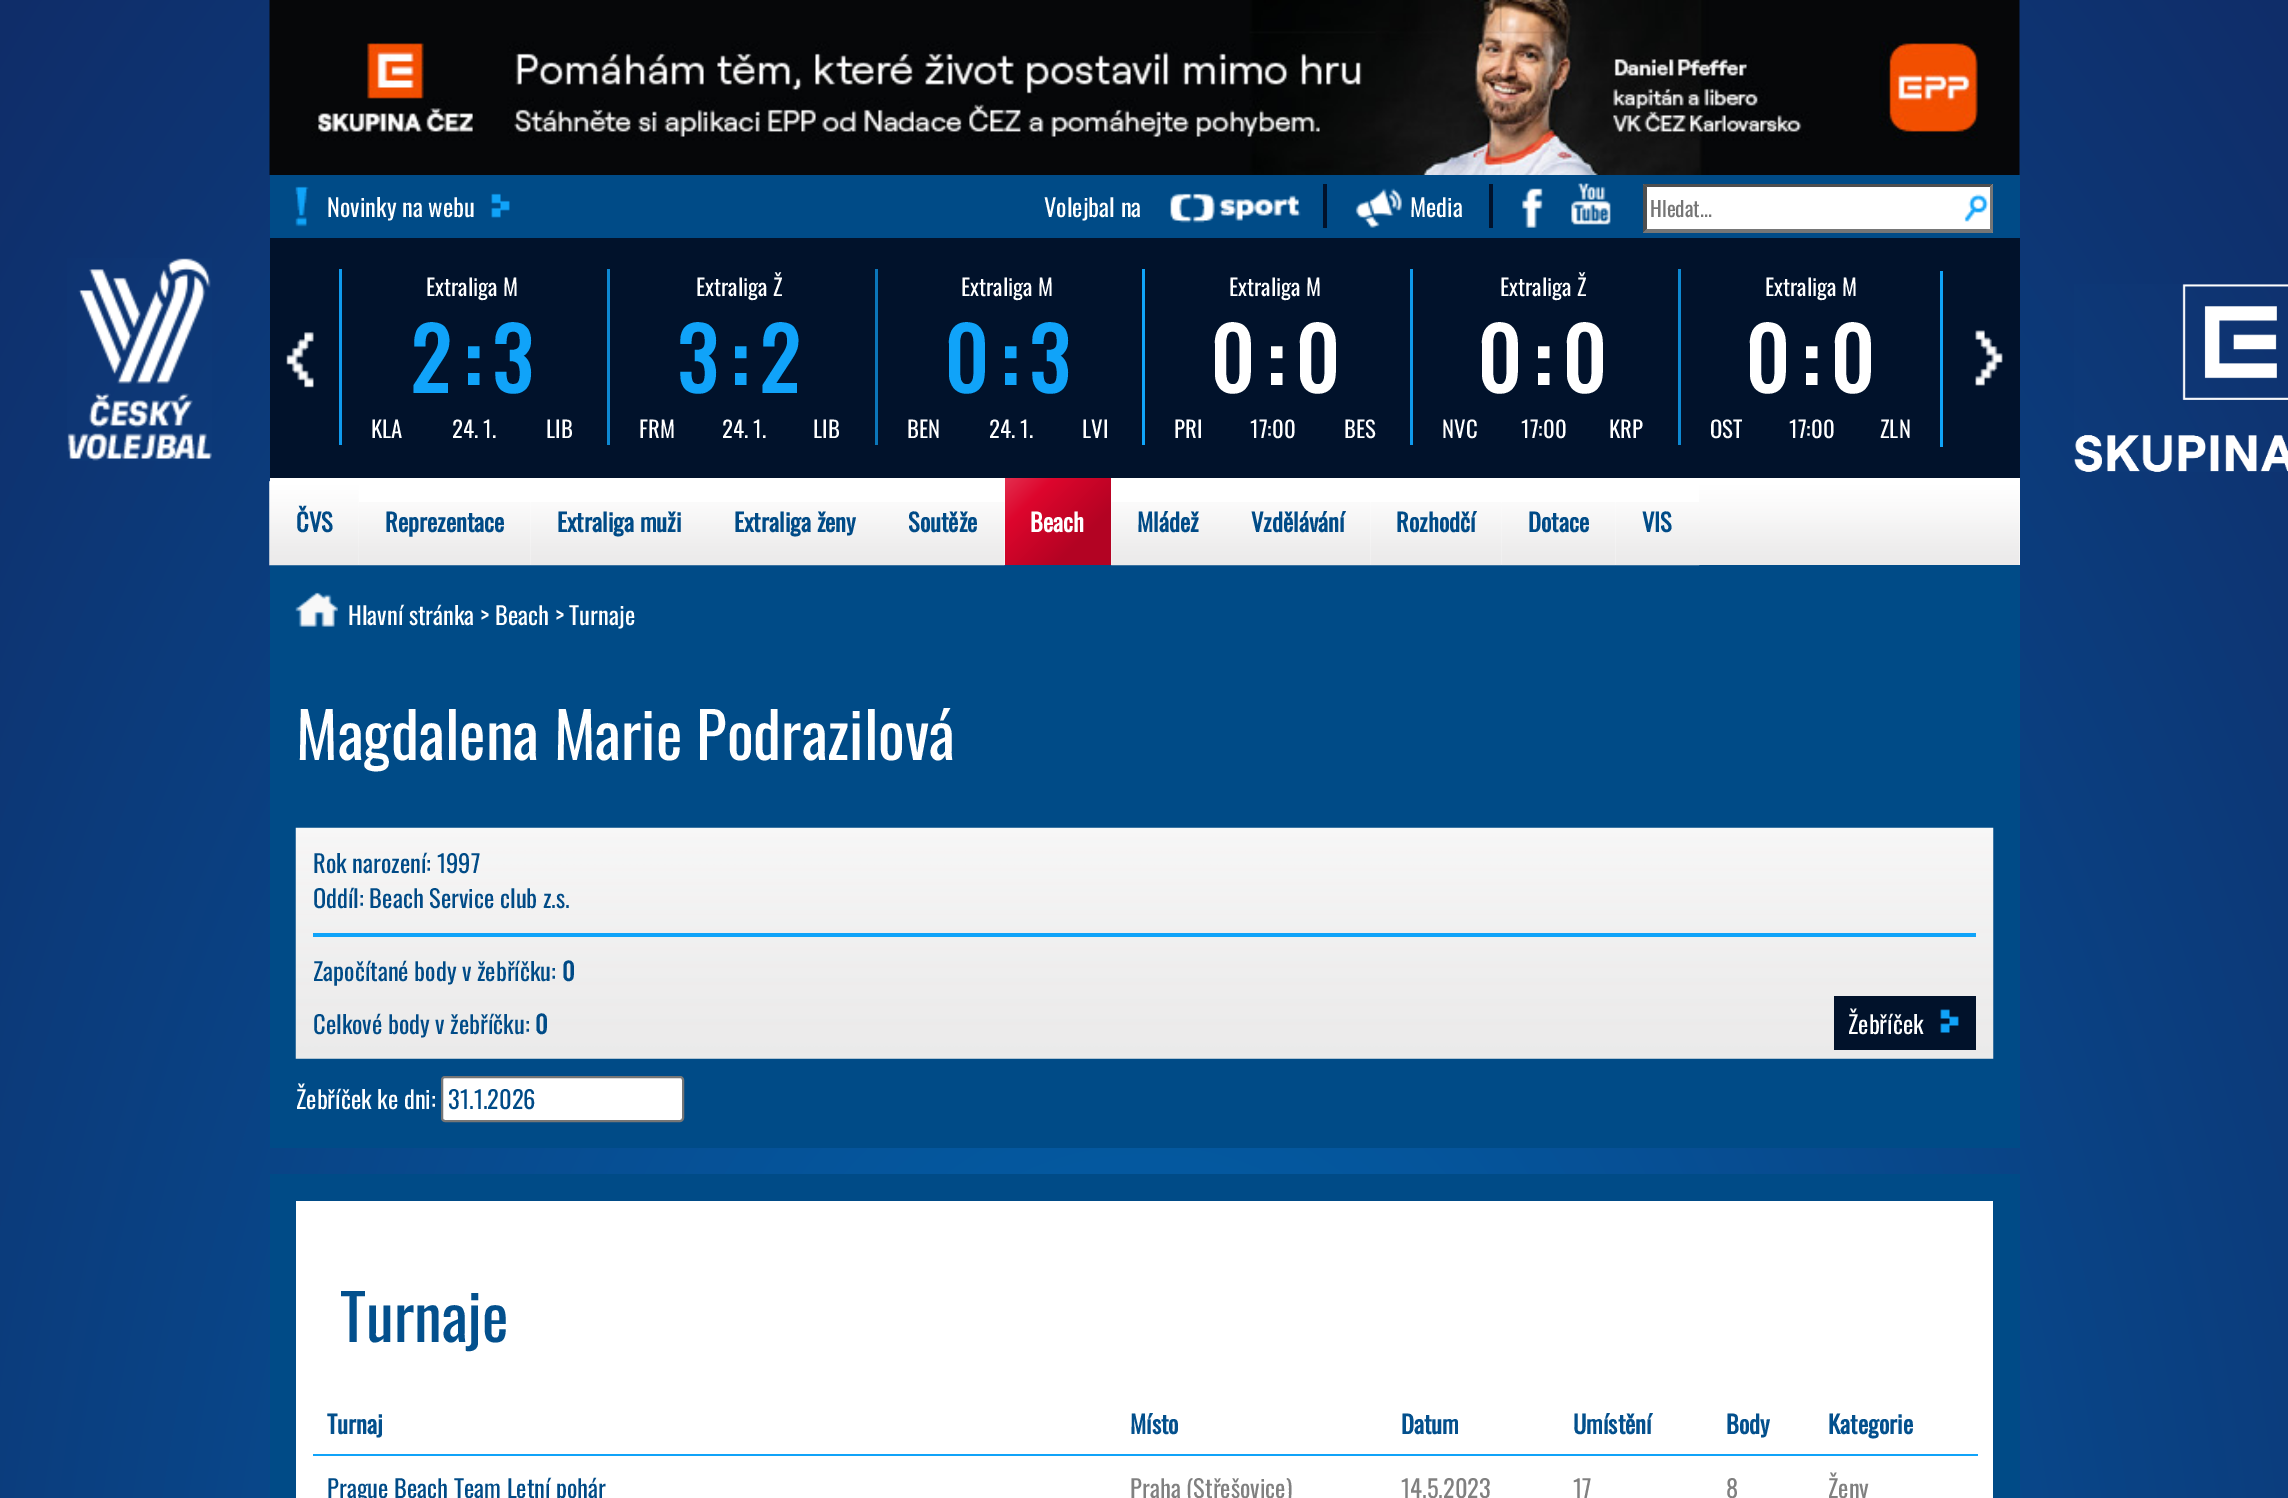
%!PS
<< /PageSize [2288 1498] >> setpagedevice
/rgb { 3 { 255 div 3 1 roll } repeat setrgbcolor } def
/font { [ exch dup neg 0 0 3 -1 roll 0 0 ] selectfont } def
/roundrect { 5 dict begin { /r /h /w /y /x } { exch def } forall
  x r add y moveto x w add y 2 copy h add r arct x w add y h add x 1 index r arct
  x y h add x y r arct x y 2 copy exch w add exch r arct closepath end } def
/picture { 5 dict begin { /h /w /y /x /name } { exch def } forall
  gsave x y translate w h scale
  w h 8 [w 0 0 h 0 0] name (r) file false 3 colorimage grestore end } def
0 1498 translate 1 -1 scale
4 setmiterlimit
255 255 255 rgb
0 0 2288 1498 rectfill
gsave 0 0 moveto 2288 0 lineto 2288 1498 lineto 0 1498 lineto closepath clip newpath 1145 1900 translate 1619 2686 scale
<< /ShadingType 3 /ColorSpace /DeviceRGB /Coords [0 0 0 0 0 1] /Extend [true true] /Function << /FunctionType 2 /Domain [0 1] /C0 [0 0.412 0.706] /C1 [0.063 0.176 0.412] /N 1 >> >> shfill grestore
(img/1.rgb) 269 0 1751 175 picture
0 75 135 rgb
270 175 1750 63 rectfill
(img/2.rgb) 295 186 14 41 picture
(img/3.rgb) 491 193 19 25 picture
1 18 43 rgb
1323 184 4 44 rectfill
(img/4.rgb) 1170 193 131 30 picture
(img/5.rgb) 1355 188 47 40 picture
1489 184 4 44 rectfill
(img/6.rgb) 1522 188 21 40 picture
(img/7.rgb) 1571 183 40 42 picture
255 255 255 rgb
1643 184 350 49 rectfill
(img/8.rgb) 1964 194 25 28 picture
79 79 79 rgb
1643 184 moveto 1993 184 lineto 1990 187 lineto 1647 187 lineto closepath fill
118 118 118 rgb
1993 184 moveto 1993 233 lineto 1990 229 lineto 1990 187 lineto closepath fill
1993 233 moveto 1643 233 lineto 1647 229 lineto 1990 229 lineto closepath fill
79 79 79 rgb
1643 233 moveto 1643 184 lineto 1647 187 lineto 1647 229 lineto closepath fill
(img/9.rgb) 67 258 145 203 picture
1 18 43 rgb
270 238 1750 240 rectfill
(img/10.rgb) 286 332 28 56 picture
[
  [339 269 3 176 15 154 237]
  [607 269 3 176 13 136 210]
  [875 269 3 176 11 118 185]
  [1142 269 3 176 16 164 249]
  [1410 269 3 176 15 154 237]
  [1678 269 3 176 13 136 210]
  [1940 271 3 176 16 164 249]
] { aload pop rgb rectfill } forall
(img/11.rgb) 1975 330 28 56 picture
(img/12.rgb) 2074 284 214 188 picture
255 255 255 rgb
1699 478 321 87 rectfill
(img/13.rgb) 269 481 1751 85 picture
270 478 1345 87 rectfill
0 75 135 rgb
270 565 1750 583 rectfill
(img/14.rgb) 269 481 90 85 picture
(img/15.rgb) 358 502 173 64 picture
255 255 255 rgb
530 521 1 44 rectfill
(img/16.rgb) 530 502 177 64 picture
(img/17.rgb) 707 502 175 64 picture
(img/18.rgb) 882 502 123 64 picture
gsave 1005 478 moveto 1111 478 lineto 1111 565 lineto 1005 565 lineto closepath clip newpath
<< /ShadingType 2 /ColorSpace /DeviceRGB /Coords [1009 473 1106 570] /Extend [true true] /Function << /FunctionType 3 /Domain [0 1] /Functions [<< /FunctionType 2 /Domain [0 1] /C0 [0.89 0.188 0.314] /C1 [0.867 0.02 0.173] /N 1 >> << /FunctionType 2 /Domain [0 1] /C0 [0.867 0.02 0.173] /C1 [0.702 0.012 0.137] /N 1 >> << /FunctionType 2 /Domain [0 1] /C0 [0.702 0.012 0.137] /C1 [0.702 0.012 0.137] /N 1 >>] /Bounds [0.26 0.72] /Encode [0 1 0 1 0 1] >> >> shfill grestore
(img/19.rgb) 1111 502 114 64 picture
(img/20.rgb) 1225 502 146 64 picture
1370 521 1 44 rectfill
(img/21.rgb) 1370 502 132 64 picture
(img/22.rgb) 1501 502 115 64 picture
1615 478 84 87 rectfill
(img/23.rgb) 1615 502 85 64 picture
(img/24.rgb) 295 592 43 35 picture
(img/25.rgb) 295 827 1699 232 picture
16 163 249 rgb
313 933 1663 4 rectfill
1 18 43 rgb
1834 996 142 54 rectfill
(img/26.rgb) 1940 1009 19 24 picture
255 255 255 rgb
442 1077 241 44 3 roundrect gsave fill grestore
118 118 118 rgb
2 setlinewidth
stroke
[
  [270 1174 1750 324 0 75 135]
  [296 1201 1697 297 255 255 255]
  [313 1454 1665 2 16 163 249]
] { aload pop rgb rectfill } forall
/Oswald-Regular 24.5 font
255 255 255 rgb
[
  [(Novinky na webu) 327 217]
  [(Volejbal na) 1044 217]
  [(Media) 1410 217]
] { aload pop moveto show } forall
/Oswald-Regular 21 font
117 117 117 rgb
1650 217 moveto (Hledat...) show
/Oswald-Regular 22.75 font
255 255 255 rgb
426 296 moveto (Extraliga M) show
/Oswald-Bold 84 font
16 163 249 rgb
410 393 moveto 12.5 0 (2:3) ashow
/Oswald-Regular 22.75 font
255 255 255 rgb
[
  [(KLA) 371 438]
  [(24. 1.) 452 438]
  [(LIB) 546 438]
  [(Extraliga Ž) 696 296]
] { aload pop moveto show } forall
/Oswald-Bold 84 font
16 163 249 rgb
677 393 moveto 12.5 0 (3:2) ashow
/Oswald-Regular 22.75 font
255 255 255 rgb
[
  [(FRM) 639 438]
  [(24. 1.) 722 438]
  [(LIB) 813 438]
  [(Extraliga M) 961 296]
] { aload pop moveto show } forall
/Oswald-Bold 84 font
16 163 249 rgb
944 393 moveto 12.5 0 (0:3) ashow
/Oswald-Regular 22.75 font
255 255 255 rgb
[
  [(BEN) 907 438]
  [(24. 1.) 989 438]
  [(LVI) 1082 438]
  [(Extraliga M) 1229 296]
] { aload pop moveto show } forall
/Oswald-Bold 84 font
1210 393 moveto 12.5 0 (0:0) ashow
/Oswald-Regular 22.75 font
[
  [(PRI) 1174 438]
  [(17:00) 1250 438]
  [(BES) 1344 438]
  [(Extraliga Ž) 1500 296]
] { aload pop moveto show } forall
/Oswald-Bold 84 font
1477 393 moveto 12.5 0 (0:0) ashow
/Oswald-Regular 22.75 font
[
  [(NVC) 1442 438]
  [(17:00) 1521 438]
  [(KRP) 1609 438]
  [(Extraliga M) 1765 296]
] { aload pop moveto show } forall
/Oswald-Bold 84 font
1745 393 moveto 12.5 0 (0:0) ashow
/Oswald-Regular 22.75 font
[
  [(OST) 1710 438]
  [(17:00) 1789 438]
  [(ZLN) 1880 438]
] { aload pop moveto show } forall
/Oswald-Bold 24.5 font
0 75 135 rgb
[
  [(ČVS) 296 532]
  [(Reprezentace) 385 532]
  [(Extraliga muži) 557 532]
  [(Extraliga ženy) 734 532]
  [(Soutěže) 908 532]
] { aload pop moveto show } forall
255 255 255 rgb
1030 532 moveto (Beach) show
0 75 135 rgb
[
  [(Mládež) 1137 532]
  [(Vzdělávání) 1251 532]
  [(Rozhodčí) 1396 532]
  [(Dotace) 1528 532]
  [(VIS) 1642 532]
] { aload pop moveto show } forall
/Oswald-Regular 24.5 font
255 255 255 rgb
348 625 moveto (Hlavní stránka > Beach > Turnaje) show
/Oswald-Regular 63 font
296 760 moveto (Magdalena Marie Podrazilová) show
/Oswald-Regular 24.5 font
0 75 135 rgb
[
  [(Rok narození: 1997) 313 873]
  [(Oddíl: Beach Service club z.s.) 313 908]
  [(Započítané body v žebříčku:) 313 981]
] { aload pop moveto show } forall
/Oswald-Bold 24.5 font
562 981 moveto (0) show
/Oswald-Regular 24.5 font
313 1034 moveto (Celkové body v žebříčku:) show
/Oswald-Bold 24.5 font
535 1034 moveto (0) show
/Oswald-Regular 24.5 font
255 255 255 rgb
1848 1034 moveto (Žebříček) show
296 1109 moveto (Žebříček ke dni:) show
0 75 135 rgb
448 1109 moveto (31.1.2026) show
/Oswald-Regular 63 font
3 80 141 rgb
340 1342 moveto (Turnaje) show
/Oswald-Bold 24.5 font
[
  [(Turnaj) 327 1434]
  [(Místo) 1130 1434]
  [(Datum) 1401 1434]
  [(Umístění) 1573 1434]
  [(Body) 1726 1434]
  [(Kategorie) 1828 1434]
] { aload pop moveto show } forall
/Oswald-Regular 24.5 font
0 75 135 rgb
327 1498 moveto (Prague Beach Team Letní pohár) show
128 128 128 rgb
[
  [(Praha \(Střešovice\)) 1130 1498]
  [(14.5.2023) 1401 1498]
  [(17) 1573 1498]
  [(8) 1726 1498]
  [(Ženy) 1828 1498]
] { aload pop moveto show } forall
showpage
